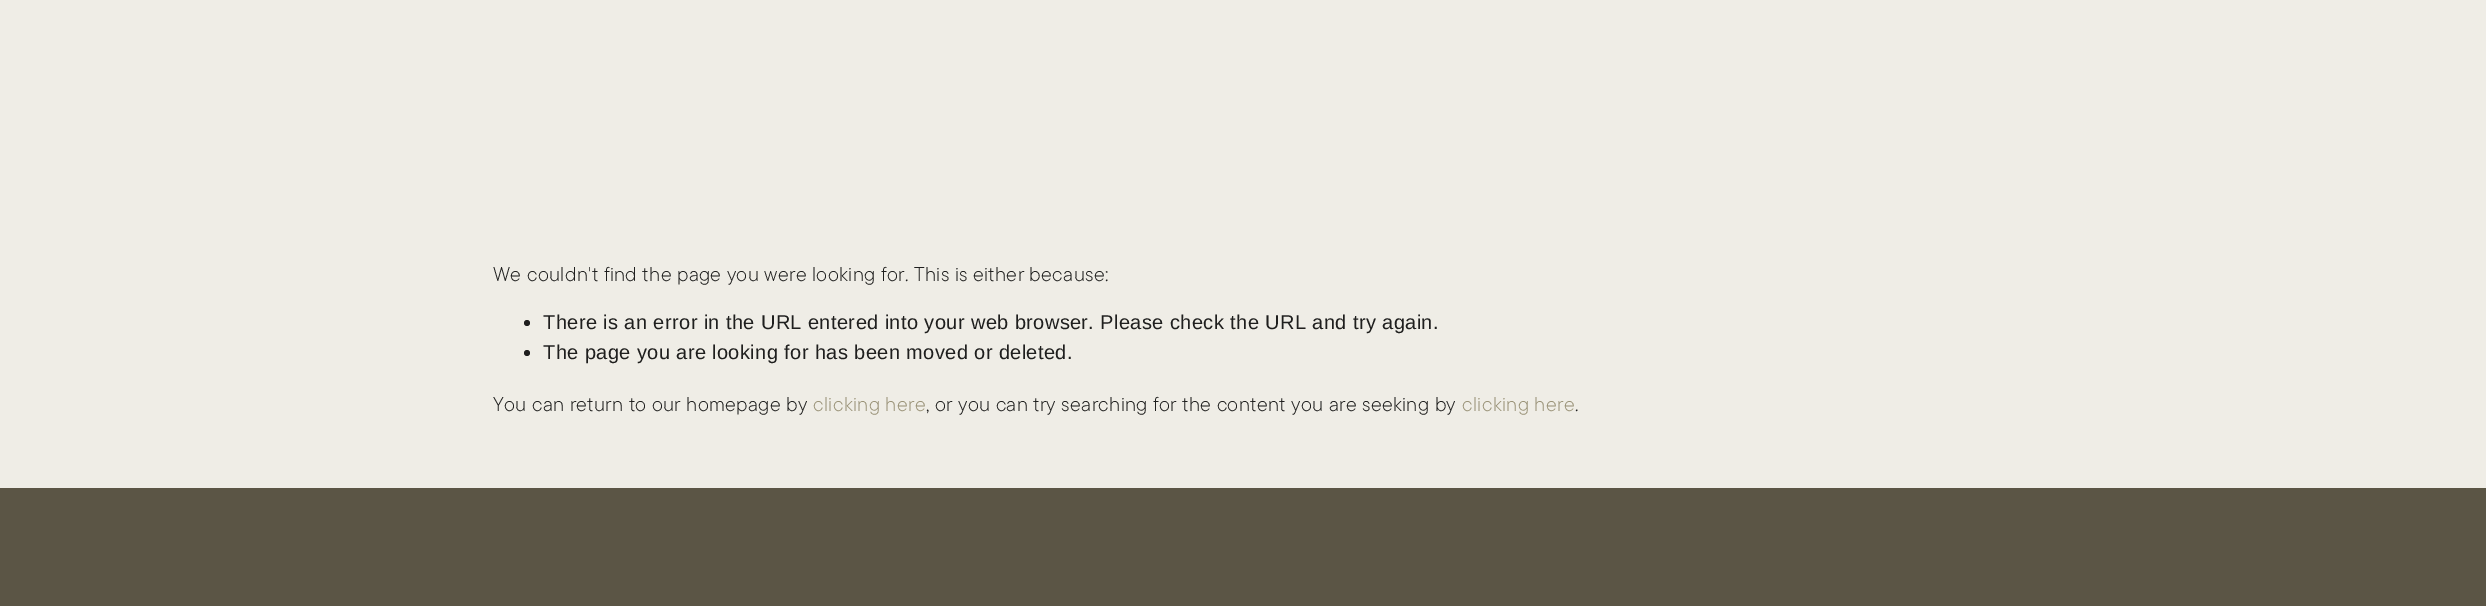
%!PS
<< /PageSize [2486 606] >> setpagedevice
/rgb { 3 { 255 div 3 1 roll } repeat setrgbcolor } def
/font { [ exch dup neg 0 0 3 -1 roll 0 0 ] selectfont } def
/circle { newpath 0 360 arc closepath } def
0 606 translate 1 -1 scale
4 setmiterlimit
239 237 230 rgb
0 0 2486 606 rectfill
31 31 30 rgb
527 323 3 circle fill
527 353 3 circle fill
91 85 69 rgb
0 488 2486 118 rectfill
/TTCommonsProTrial-Light 20 font
31 31 30 rgb
493 281 moveto 0.4 0 (We couldn't find the page you were looking for. This is either because:) ashow
/LiberationSans-Regular 20 font
543 329 moveto 0.4 0 (There is an error in the URL entered into your web browser. Please check the URL and try again.) ashow
543 359 moveto 0.4 0 (The page you are looking for has been moved or deleted.) ashow
/TTCommonsProTrial-Light 20 font
493 411 moveto 0.4 0 (You can return to our homepage by) ashow
154 147 120 rgb
813 411 moveto 0.4 0 (clicking here) ashow
31 31 30 rgb
926 411 moveto 0.4 0 (, or you can try searching for the content you are seeking by) ashow
154 147 120 rgb
1462 411 moveto 0.4 0 (clicking here) ashow
31 31 30 rgb
1575 411 moveto 0.4 0 (.) ashow
showpage
